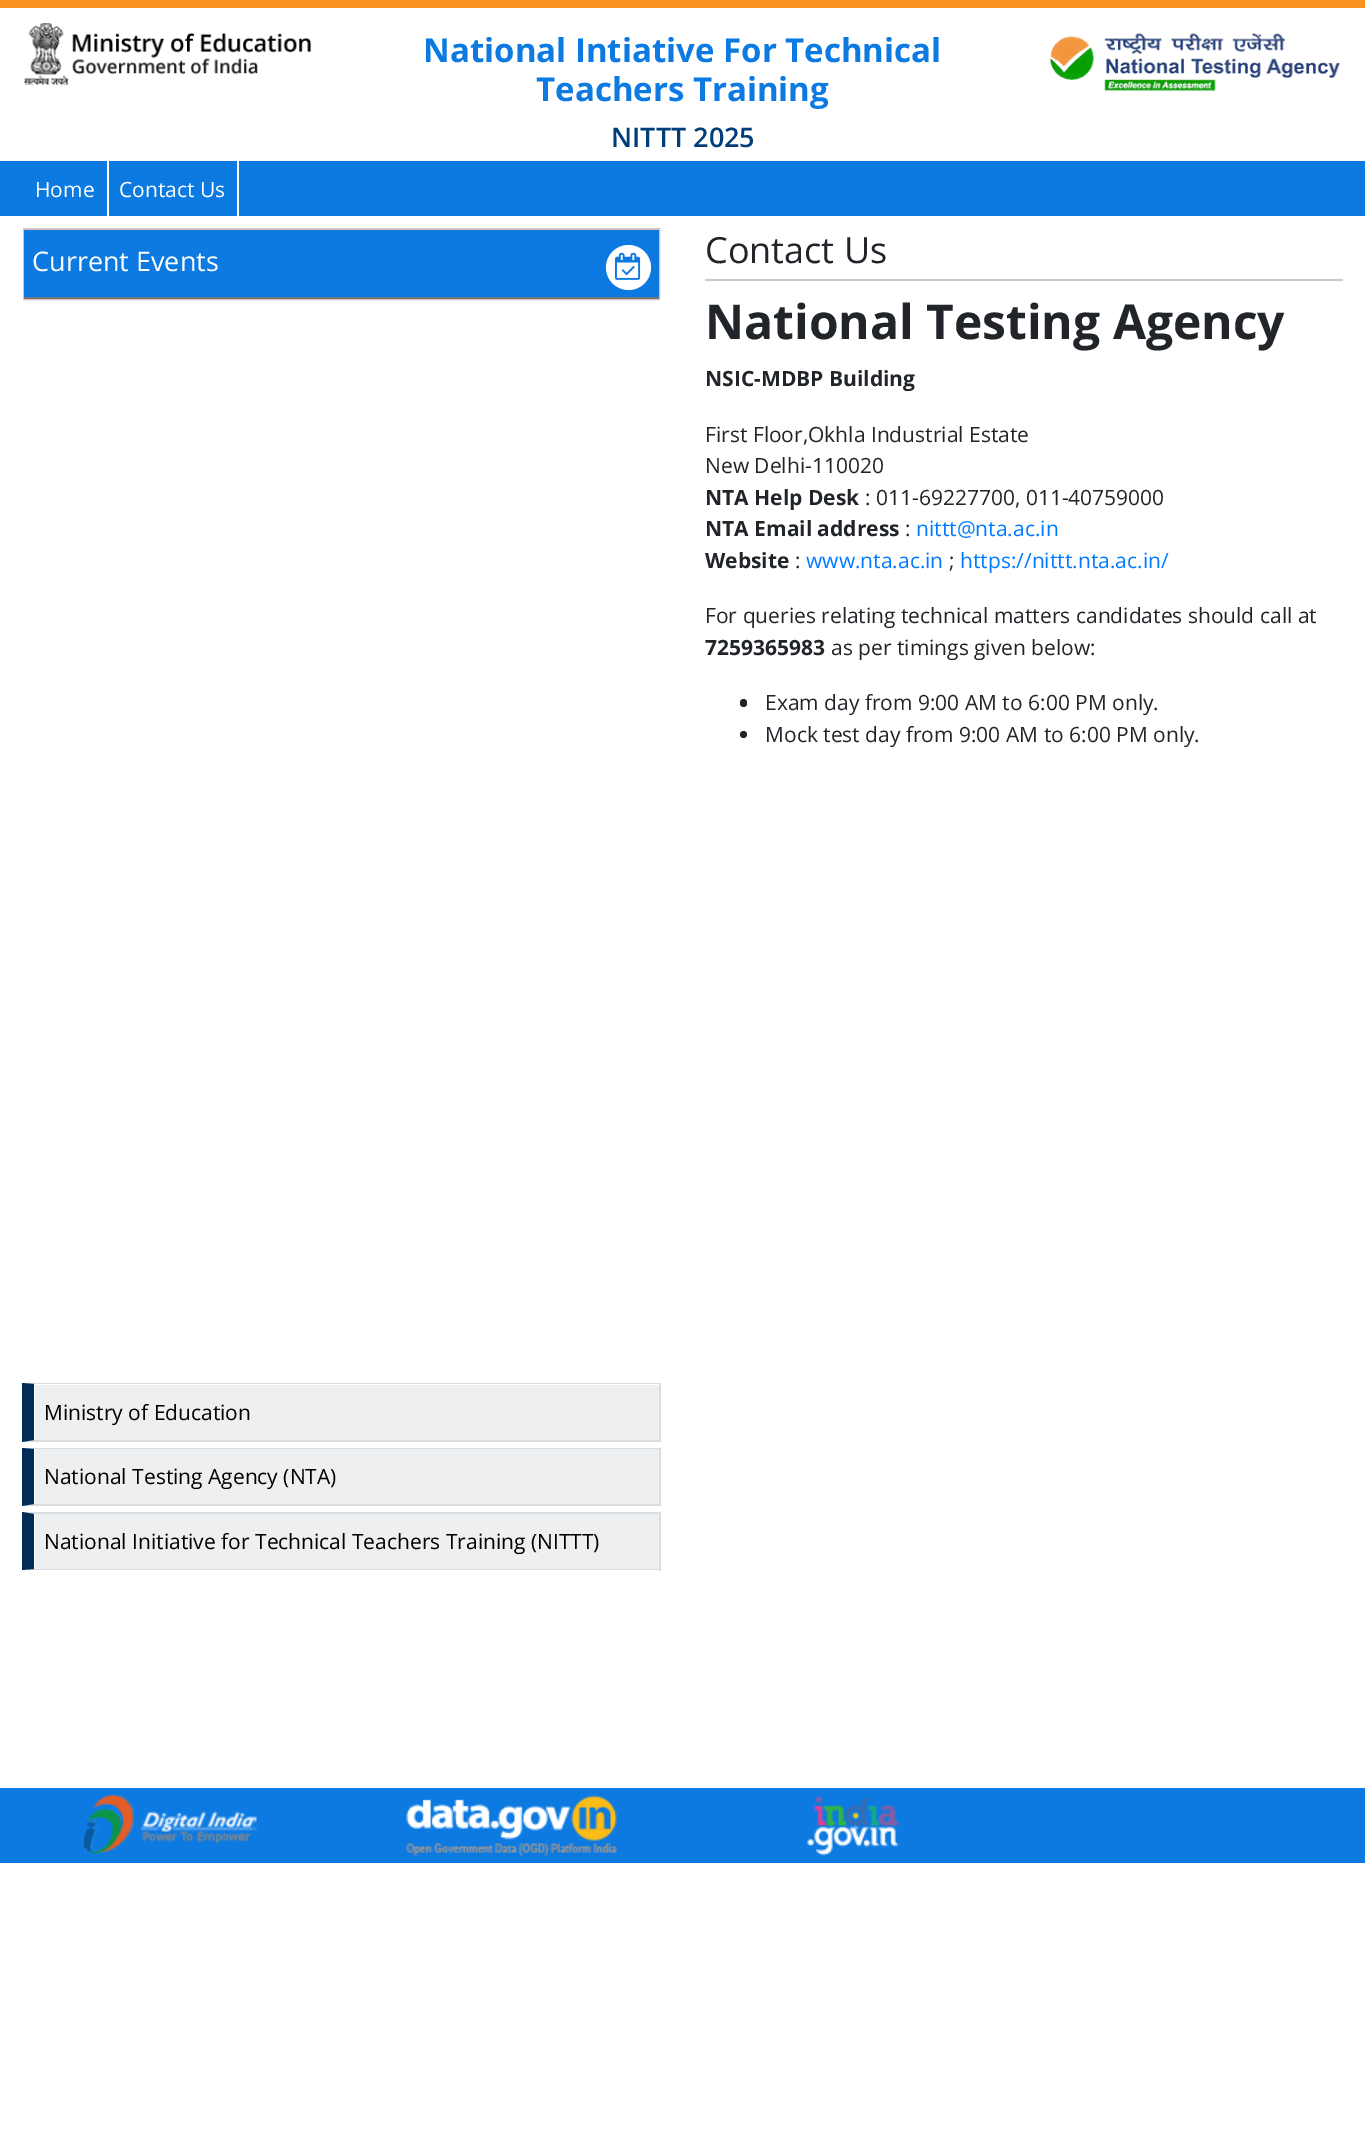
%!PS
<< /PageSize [1365 2130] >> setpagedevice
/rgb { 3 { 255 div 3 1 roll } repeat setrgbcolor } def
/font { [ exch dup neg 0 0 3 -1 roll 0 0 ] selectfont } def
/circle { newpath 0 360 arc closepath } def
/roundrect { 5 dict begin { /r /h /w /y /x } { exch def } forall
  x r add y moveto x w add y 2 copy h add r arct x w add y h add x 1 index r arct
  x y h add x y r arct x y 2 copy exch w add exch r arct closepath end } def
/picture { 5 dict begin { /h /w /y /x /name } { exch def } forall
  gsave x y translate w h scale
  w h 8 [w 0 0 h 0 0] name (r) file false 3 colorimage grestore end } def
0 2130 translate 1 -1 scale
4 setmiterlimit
255 255 255 rgb
0 0 1365 2130 rectfill
247 147 30 rgb
0 0 1365 8 rectfill
(img/1.rgb) 24 23 288 63 picture
(img/2.rgb) 1049 32 291 60 picture
[
  [0 161 1365 55 13 122 226]
  [107 161 2 55 255 255 255]
  [237 161 2 55 255 255 255]
] { aload pop rgb rectfill } forall
215 194 194 rgb
2 setlinewidth
24 229 635 70 rectstroke
13 122 226 rgb
24 230 635 67 rectfill
117 117 117 rgb
24 297 635 2 rectfill
255 255 255 rgb
628.5 267.5 22.5 circle fill
(img/3.rgb) 615 252 26 28 picture
201 201 201 rgb
705 279 638 2 rectfill
33 37 41 rgb
740 699 7 8 3.5 roundrect fill
743.5 734.5 3.5 circle fill
238 239 241 rgb
35 1385 624 55 rectfill
217 220 225 rgb
22 1383 moveto 660 1383 lineto 658 1384 lineto 34 1384 lineto closepath fill
659 1383 2 59 rectfill
660 1442 moveto 22 1442 lineto 34 1440 lineto 658 1440 lineto closepath fill
0 44 86 rgb
22 1442 moveto 22 1383 lineto 34 1384 lineto 34 1440 lineto closepath fill
238 239 241 rgb
35 1449 624 56 rectfill
217 220 225 rgb
22 1448 moveto 660 1448 lineto 658 1449 lineto 34 1449 lineto closepath fill
659 1448 2 58 rectfill
660 1506 moveto 22 1506 lineto 34 1504 lineto 658 1504 lineto closepath fill
0 44 86 rgb
22 1506 moveto 22 1448 lineto 34 1449 lineto 34 1504 lineto closepath fill
238 239 241 rgb
35 1514 624 55 rectfill
217 220 225 rgb
22 1512 moveto 660 1512 lineto 658 1514 lineto 34 1514 lineto closepath fill
659 1512 2 59 rectfill
660 1570 moveto 22 1570 lineto 34 1569 lineto 658 1569 lineto closepath fill
0 44 86 rgb
22 1570 moveto 22 1512 lineto 34 1514 lineto 34 1569 lineto closepath fill
13 122 226 rgb
0 1788 1365 75 rectfill
(img/4.rgb) 84 1795 173 59 picture
(img/5.rgb) 406 1795 211 61 picture
(img/6.rgb) 807 1795 92 61 picture
/OpenSans-Bold 33 font
423 62 moveto (National Intiative For Technical) show
536 101 moveto (Teachers Training) show
/OpenSans-SemiBold 27 font
0 62 121 rgb
611 147 moveto (NITTT 2025) show
/OpenSans-Regular 21 font
255 255 255 rgb
35 197 moveto (Home) show
119 197 moveto (Contact Us) show
/OpenSans-Regular 27 font
32 271 moveto (Current Events) show
/OpenSans-Regular 36 font
33 37 41 rgb
705 263 moveto (Contact Us) show
/OpenSans-Bold 48 font
705 339 moveto (National Testing Agency) show
/OpenSans-Bold 21 font
705 386 moveto (NSIC-MDBP Building) show
/OpenSans-Regular 21 font
705 442 moveto (First Floor,Okhla Industrial Estate) show
705 473 moveto (New Delhi-110020) show
/OpenSans-Bold 21 font
705 505 moveto (NTA Help Desk) show
/OpenSans-Regular 21 font
865 505 moveto (: 011-69227700, 011-40759000) show
/OpenSans-Bold 21 font
705 536 moveto (NTA Email address) show
/OpenSans-Regular 21 font
905 536 moveto (:) show
0 123 255 rgb
916 536 moveto (nittt@nta.ac.in) show
/OpenSans-Bold 21 font
33 37 41 rgb
705 568 moveto (Website) show
/OpenSans-Regular 21 font
795 568 moveto (:) show
0 123 255 rgb
806 568 moveto (www.nta.ac.in) show
33 37 41 rgb
949 568 moveto (;) show
0 123 255 rgb
960 568 moveto (https://nittt.nta.ac.in/) show
33 37 41 rgb
705 623 moveto (For queries relating technical matters candidates should call at) show
/OpenSans-Bold 21 font
705 655 moveto (7259365983) show
/OpenSans-Regular 21 font
[
  [(as per timings given below:) 831 655]
  [(Exam day from 9:00 AM to 6:00 PM only.) 765 710]
  [(Mock test day from 9:00 AM to 6:00 PM only.) 765 742]
] { aload pop moveto show } forall
0 0 0 rgb
[
  [(Ministry of Education) 44 1420]
  [(National Testing Agency \(NTA\)) 44 1484]
  [(National Initiative for Technical Teachers Training \(NITTT\)) 44 1549]
] { aload pop moveto show } forall
showpage
